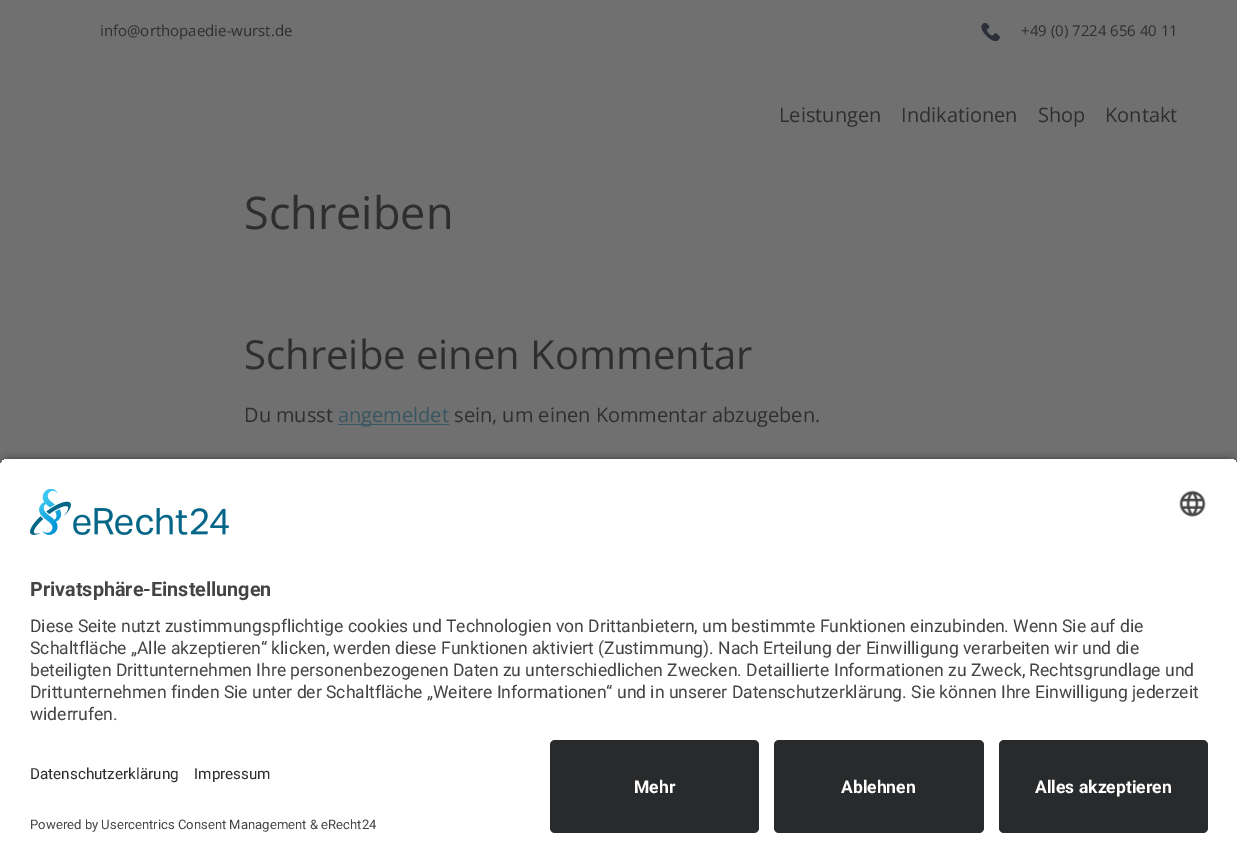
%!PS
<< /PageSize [1237 862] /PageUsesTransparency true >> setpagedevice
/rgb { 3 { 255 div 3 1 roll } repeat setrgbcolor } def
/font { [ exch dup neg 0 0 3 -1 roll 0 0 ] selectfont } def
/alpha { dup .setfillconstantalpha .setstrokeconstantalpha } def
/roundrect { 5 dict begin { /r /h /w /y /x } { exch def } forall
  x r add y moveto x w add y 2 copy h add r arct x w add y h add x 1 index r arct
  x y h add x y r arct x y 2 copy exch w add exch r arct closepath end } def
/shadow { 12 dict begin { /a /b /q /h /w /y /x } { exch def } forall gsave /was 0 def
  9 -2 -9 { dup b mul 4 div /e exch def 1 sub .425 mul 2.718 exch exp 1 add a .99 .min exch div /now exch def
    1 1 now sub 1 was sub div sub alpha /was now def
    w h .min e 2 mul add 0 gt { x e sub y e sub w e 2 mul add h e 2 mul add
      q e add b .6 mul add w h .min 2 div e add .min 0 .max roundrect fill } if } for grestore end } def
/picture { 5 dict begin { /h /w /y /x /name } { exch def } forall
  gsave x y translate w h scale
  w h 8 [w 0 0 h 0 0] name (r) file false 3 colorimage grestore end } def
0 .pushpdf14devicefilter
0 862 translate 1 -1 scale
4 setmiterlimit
112 112 112 rgb
0 0 1237 862 rectfill
(img/1.rgb) 981 23 19 18 picture
55 86 96 rgb
338 424 111 1 rectfill
46 46 46 rgb
0 463 1237 5 rectfill
0 0 0 rgb
0 461 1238 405 10 4.5 0.8 shadow
gsave
10 458 moveto 1228 458 lineto 1233.5 458 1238 462.5 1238 468 curveto 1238 730 lineto 0 730 lineto 0 468 lineto 0 462.5 4.5 458 10 458 curveto closepath clip newpath
255 255 255 rgb
0 459 1237 271 rectfill
grestore
(img/2.rgb) 30 489 199 46 picture
(img/3.rgb) 1179 490 27 27 picture
255 255 255 rgb
0 730 1237 132 rectfill
41 42 43 rgb
550 740 209 93 5 roundrect fill
774 740 210 93 5 roundrect fill
999 740 209 93 5 roundrect fill
/OpenSans-Regular 15 font
46 46 46 rgb
100 36 moveto (info@orthopaedie-wurst.de) show
1021 36 moveto (+49 \(0\) 7224 656 40 11) show
/OpenSans-Regular 20 font
[
  [(Leistungen) 779 122]
  [(Indikationen) 901 122]
  [(Shop) 1038 122]
  [(Kontakt) 1105 122]
] { aload pop moveto show } forall
/OpenSans-Regular 45 font
244 229 moveto (Schreiben) show
/OpenSans-Regular 40 font
244 369 moveto (Schreibe einen Kommentar) show
/OpenSans-Regular 20 font
244 422 moveto (Du musst) show
55 86 96 rgb
338 422 moveto (angemeldet) show
46 46 46 rgb
454 422 moveto (sein, um einen Kommentar abzugeben.) show
/Roboto-Bold 19.75 font
68 68 68 rgb
30 596 moveto (Privatsphäre-Einstellungen) show
/Roboto-Regular 17.5 font
[
  [(Diese Seite nutzt zustimmungspflichtige cookies und Technologien von Drittanbietern, um bestimmte Funktionen einzubinden. Wenn Sie auf die) 30 632]
  [(Schaltfläche „Alle akzeptieren“ klicken, werden diese Funktionen aktiviert \(Zustimmung\). Nach Erteilung der Einwilligung verarbeiten wir und die) 30 654]
  [(beteiligten Drittunternehmen Ihre personenbezogenen Daten zu unterschiedlichen Zwecken. Detaillierte Informationen zu Zweck, Rechtsgrundlage und) 30 676]
  [(Drittunternehmen finden Sie unter der Schaltfläche „Weitere Informationen“ und in unserer Datenschutzerklärung. Sie können Ihre Einwilligung jederzeit) 30 698]
  [(widerrufen.) 30 720]
] { aload pop moveto show } forall
/Roboto-Regular 15.25 font
46 46 46 rgb
30 779 moveto (Datenschutzerklärung) show
194 779 moveto (Impressum) show
/Roboto-Regular 13.1 font
68 68 68 rgb
30 829 moveto (Powered by Usercentrics Consent Management & eRecht24) show
/Roboto-Bold 17.5 font
255 255 255 rgb
[
  [(Mehr) 634 793]
  [(Ablehnen) 841 793]
  [(Alles akzeptieren) 1035 793]
] { aload pop moveto show } forall
.poppdf14devicefilter showpage
